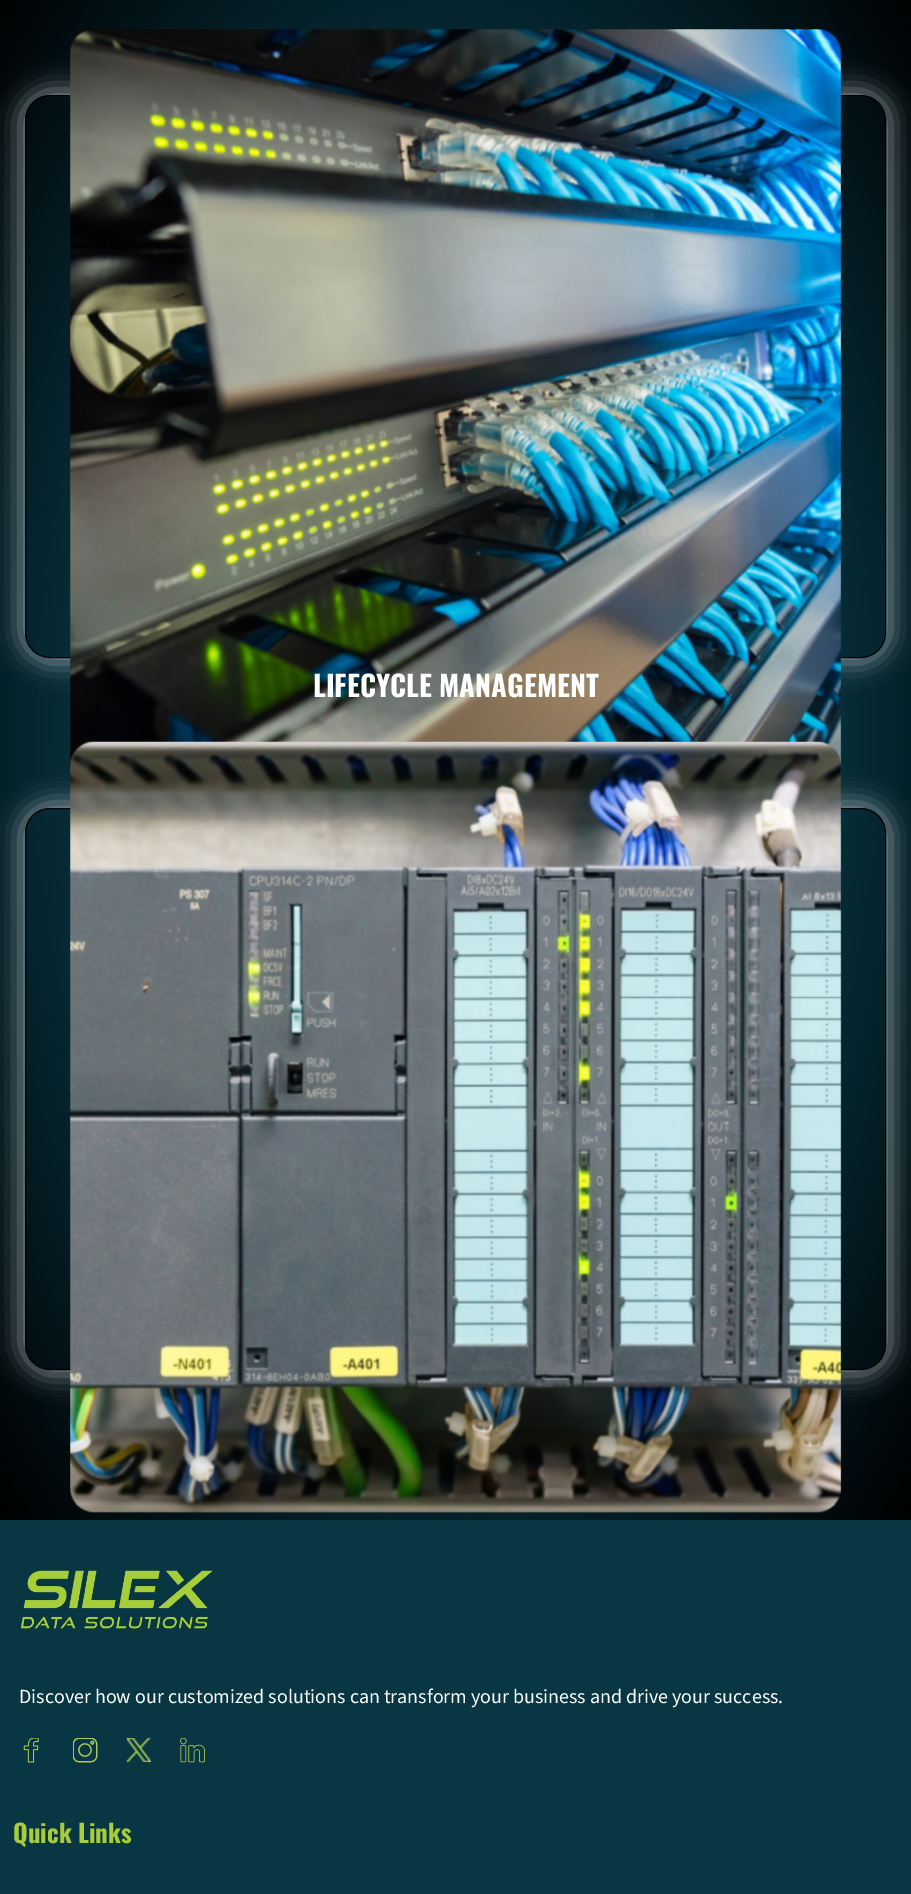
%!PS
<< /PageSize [911 1894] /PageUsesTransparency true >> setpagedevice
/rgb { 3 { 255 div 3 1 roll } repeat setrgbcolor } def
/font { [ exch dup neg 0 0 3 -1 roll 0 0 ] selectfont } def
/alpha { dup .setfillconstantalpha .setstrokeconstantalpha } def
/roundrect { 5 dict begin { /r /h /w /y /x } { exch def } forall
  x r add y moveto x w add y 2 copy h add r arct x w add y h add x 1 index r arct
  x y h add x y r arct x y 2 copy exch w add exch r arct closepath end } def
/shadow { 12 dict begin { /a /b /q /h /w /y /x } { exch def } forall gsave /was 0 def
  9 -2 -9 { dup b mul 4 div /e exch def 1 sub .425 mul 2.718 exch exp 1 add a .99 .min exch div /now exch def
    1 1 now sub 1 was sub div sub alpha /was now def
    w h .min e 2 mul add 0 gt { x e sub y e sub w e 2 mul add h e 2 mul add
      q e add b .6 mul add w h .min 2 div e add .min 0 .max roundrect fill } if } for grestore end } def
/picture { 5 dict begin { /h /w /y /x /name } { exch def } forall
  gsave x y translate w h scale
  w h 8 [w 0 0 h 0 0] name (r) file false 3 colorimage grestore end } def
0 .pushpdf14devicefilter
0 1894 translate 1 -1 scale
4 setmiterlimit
255 255 255 rgb
0 0 911 1894 rectfill
gsave 0 0 moveto 911 0 lineto 911 1520 lineto 0 1520 lineto closepath clip newpath 456 745 translate 644 1096 scale
<< /ShadingType 3 /ColorSpace /DeviceRGB /Coords [0 0 0 0 0 1] /Extend [true true] /Function << /FunctionType 3 /Domain [0 1] /Functions [<< /FunctionType 2 /Domain [0 1] /C0 [0.031 0.212 0.263] /C1 [0.031 0.212 0.263] /N 1 >> << /FunctionType 2 /Domain [0 1] /C0 [0.031 0.212 0.263] /C1 [0 0 0] /N 1 >>] /Bounds [0.52] /Encode [0 1 0 1] >> >> shfill grestore
gsave
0 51 moveto 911 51 lineto 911 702 lineto 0 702 lineto closepath 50 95 moveto 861 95 lineto 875 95 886 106 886 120 curveto 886 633 lineto 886 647 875 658 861 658 curveto 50 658 lineto 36 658 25 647 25 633 curveto 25 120 lineto 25 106 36 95 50 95 curveto closepath eoclip newpath
20 90 871 573 30 12.5 0.5 shadow
grestore
0 0 0 rgb
25.5 95.5 860 562 24.5 roundrect stroke
(img/1.rgb) 70 29 772 756 picture
gsave
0 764 moveto 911 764 lineto 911 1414 lineto 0 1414 lineto closepath 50 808 moveto 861 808 lineto 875 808 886 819 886 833 curveto 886 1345 lineto 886 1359 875 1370 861 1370 curveto 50 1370 lineto 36 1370 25 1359 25 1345 curveto 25 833 lineto 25 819 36 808 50 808 curveto closepath eoclip newpath
255 255 255 rgb
20 803 871 572 30 12.5 0.5 shadow
grestore
25.5 808.5 860 561 24.5 roundrect stroke
(img/2.rgb) 70 741 772 772 picture
8 54 67 rgb
0 1520 911 374 rectfill
(img/3.rgb) 21 1570 192 59 picture
(img/4.rgb) 23 1738 16 25 picture
(img/5.rgb) 73 1738 25 25 picture
(img/6.rgb) 126 1738 25 25 picture
(img/7.rgb) 180 1738 25 25 picture
/Oswald-Bold 28.75 font
255 255 255 rgb
313 697 moveto (LIFECYCLE MANAGEMENT) show
/SourceSans3-Regular 20 font
19 1703 moveto (Discover how our customized solutions can transform your business and drive your success.) show
/Oswald-Bold 25 font
168 204 60 rgb
13 1843 moveto (Quick Links) show
.poppdf14devicefilter showpage
